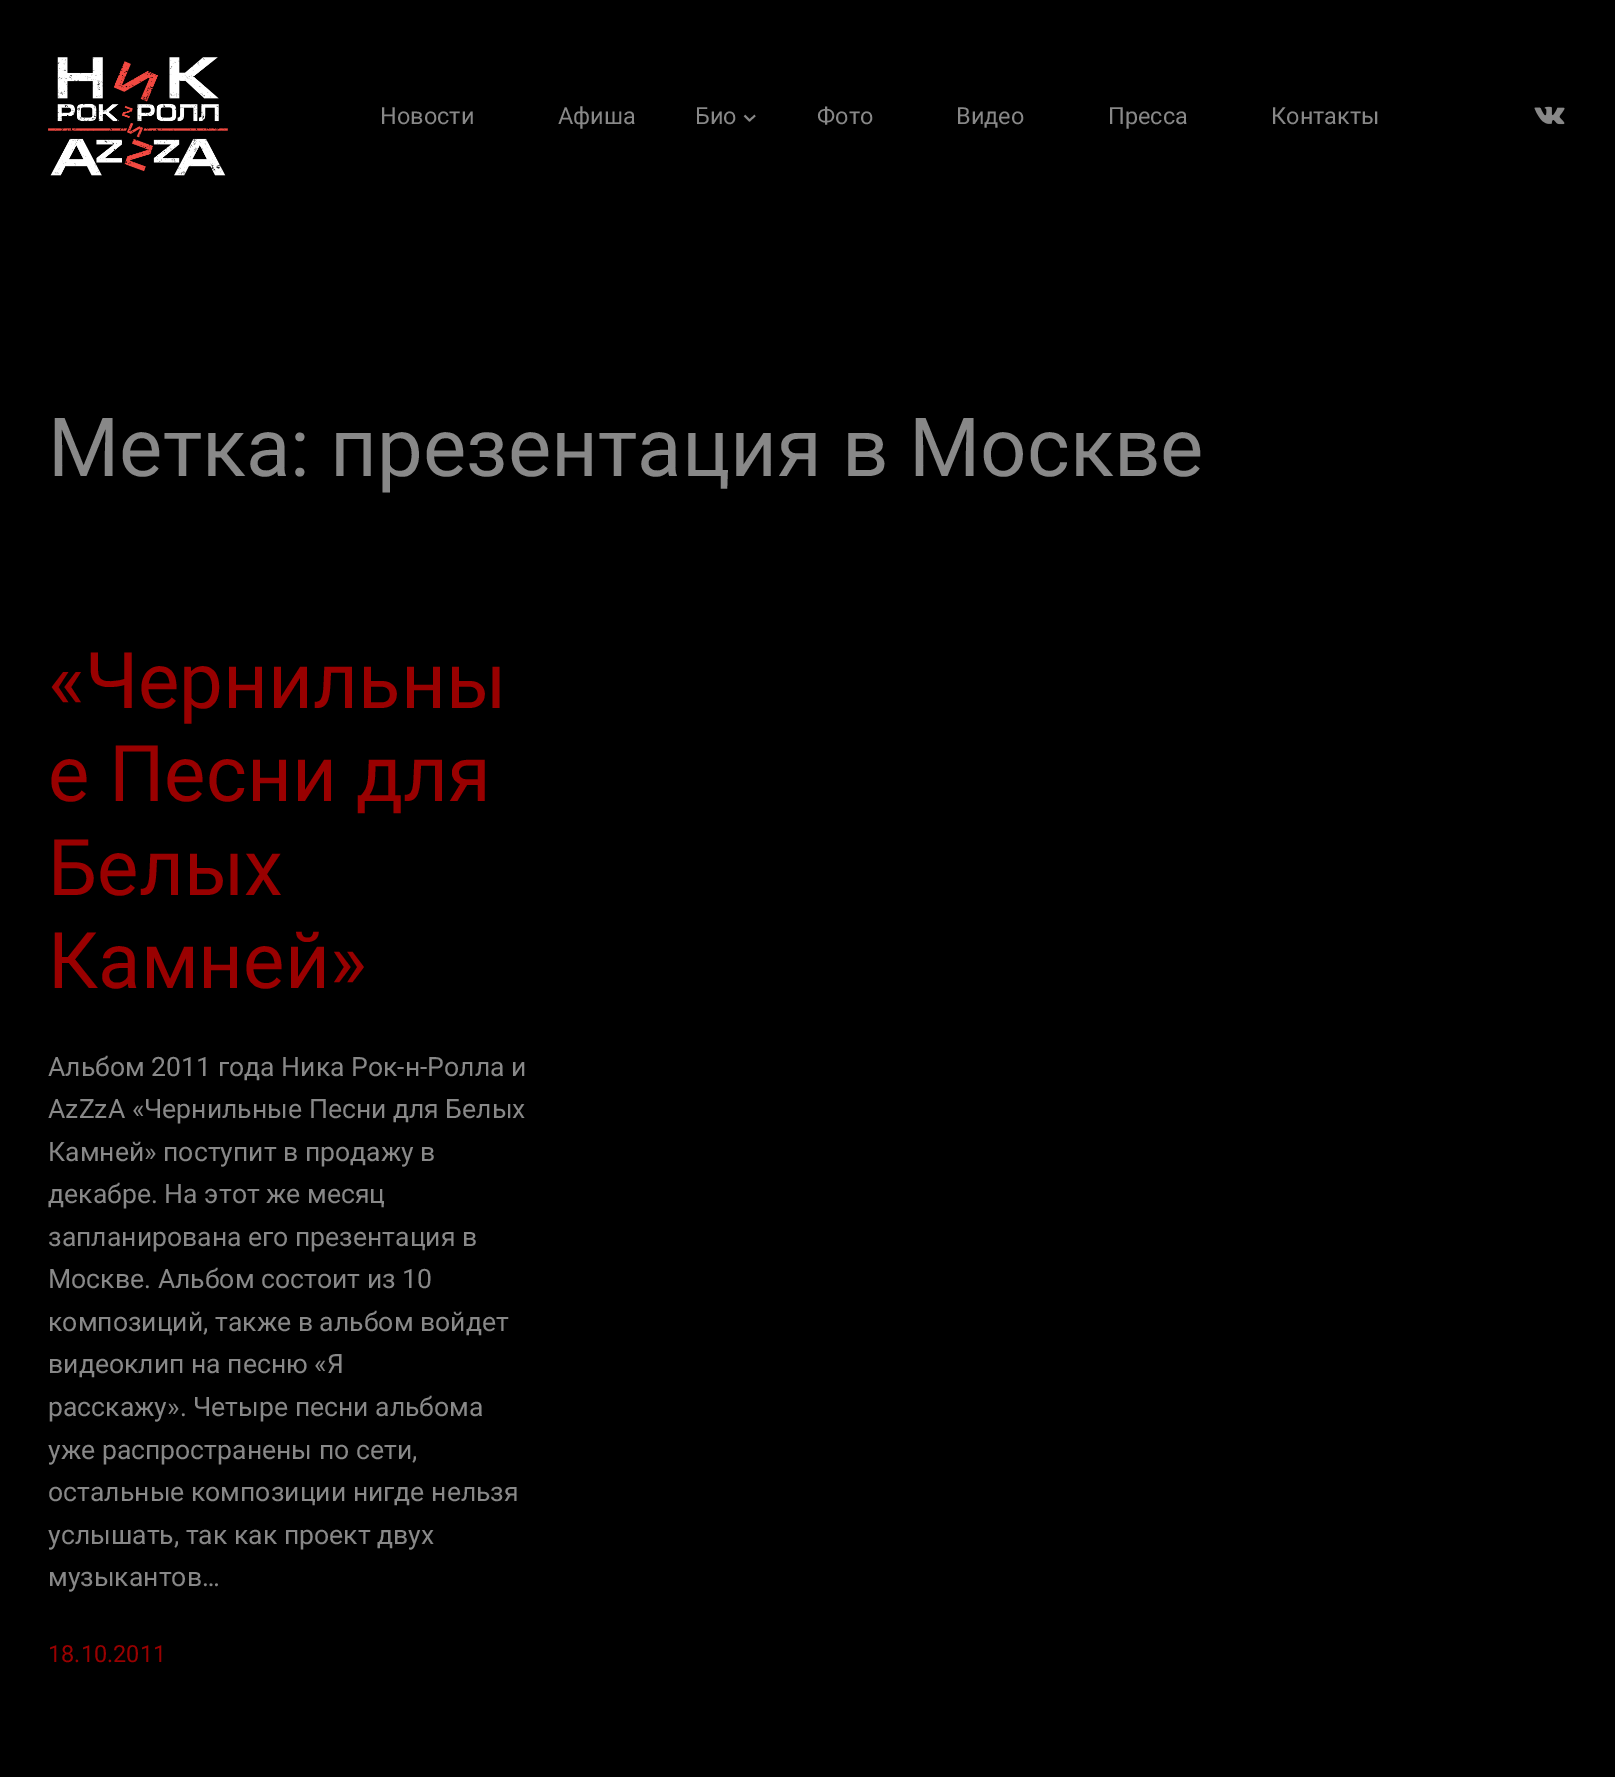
%!PS
<< /PageSize [1615 1777] >> setpagedevice
/rgb { 3 { 255 div 3 1 roll } repeat setrgbcolor } def
/font { [ exch dup neg 0 0 3 -1 roll 0 0 ] selectfont } def
/picture { 5 dict begin { /h /w /y /x /name } { exch def } forall
  gsave x y translate w h scale
  w h 8 [w 0 0 h 0 0] name (r) file false 3 colorimage grestore end } def
0 1777 translate 1 -1 scale
4 setmiterlimit
0 0 0 rgb
0 0 1615 1777 rectfill
(img/1.rgb) 48 57 180 119 picture
136 136 136 rgb
1.8 setlinewidth
744.5 115.5 moveto 749.5 120.5 lineto 755 115.5 lineto stroke
(img/2.rgb) 1534 106 31 19 picture
/Roboto-Regular 23.5 font
[
  [(Новости) 380 124]
  [(Афиша) 558 124]
  [(Био) 695 124]
  [(Фото) 817 124]
  [(Видео) 956 124]
  [(Пресса) 1108 124]
  [(Контакты) 1271 124]
] { aload pop moveto show } forall
/Roboto-Regular 81.6 font
48 476 moveto (Метка: презентация в Москве) show
/Roboto-Regular 78 font
153 0 0 rgb
[
  [(«Чернильны) 48 708]
  [(е Песни для) 48 801]
  [(Белых) 48 895]
  [(Камней») 48 988]
] { aload pop moveto show } forall
/Roboto-Regular 26.6 font
136 136 136 rgb
[
  [(Альбом 2011 года Ника Рок-н-Ролла и) 48 1076]
  [(AzZzA «Чернильные Песни для Белых) 48 1118]
  [(Камней» поступит в продажу в) 48 1161]
  [(декабре. На этот же месяц) 48 1203]
  [(запланирована его презентация в) 48 1246]
  [(Москве. Альбом состоит из 10) 48 1288]
  [(композиций, также в альбом войдет) 48 1331]
  [(видеоклип на песню «Я) 48 1373]
  [(расскажу». Четыре песни альбома) 48 1416]
  [(уже распространены по сети,) 48 1459]
  [(остальные композиции нигде нельзя) 48 1501]
  [(услышать, так как проект двух) 48 1544]
  [(музыкантов…) 48 1586]
] { aload pop moveto show } forall
/Roboto-Regular 23.5 font
153 0 0 rgb
48 1662 moveto (18.10.2011) show
showpage
